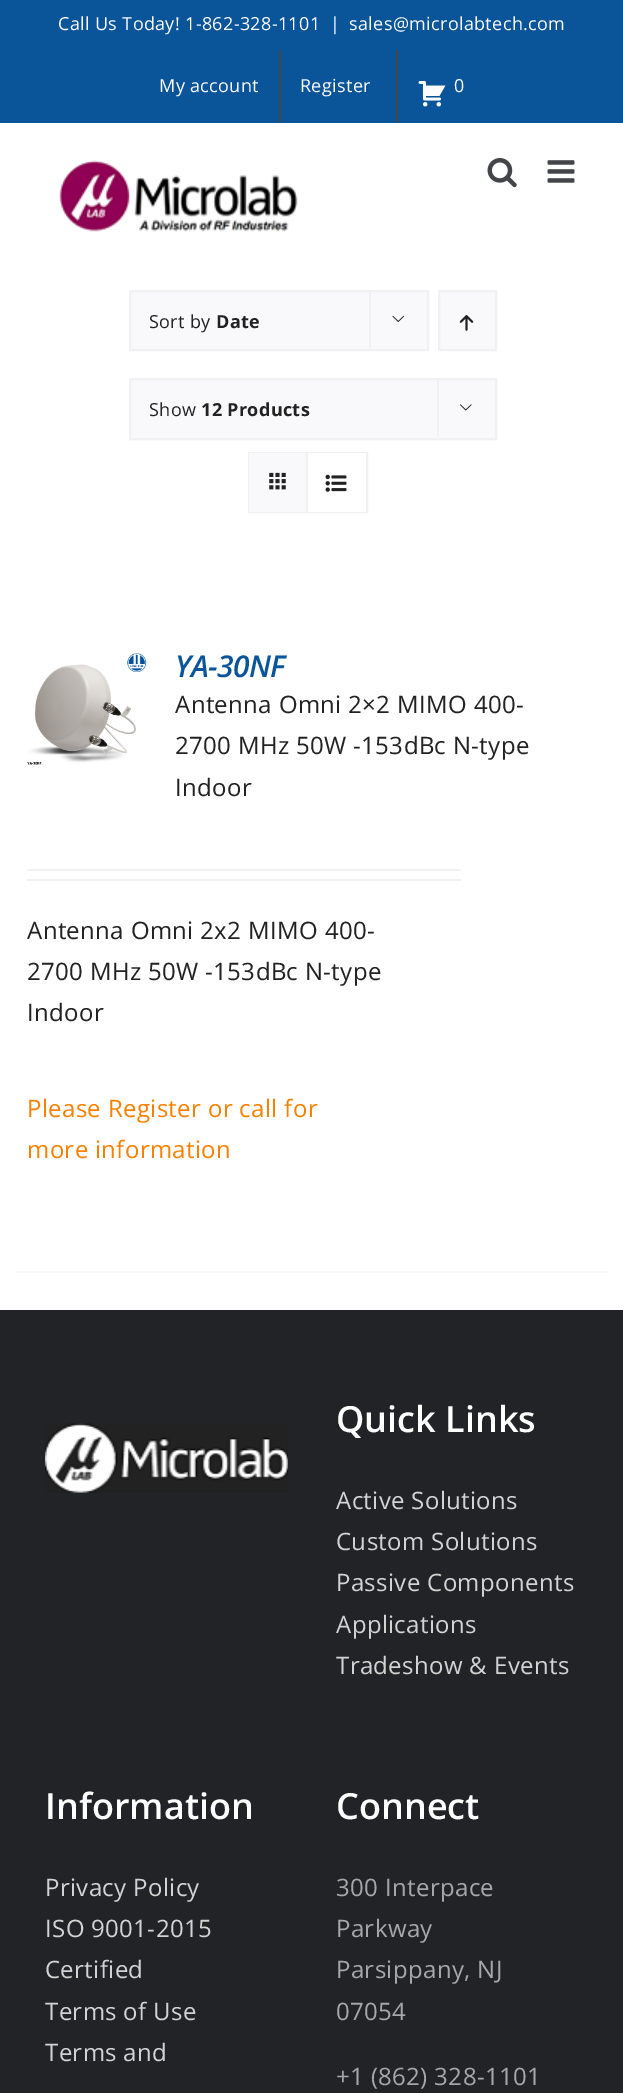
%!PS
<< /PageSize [623 2093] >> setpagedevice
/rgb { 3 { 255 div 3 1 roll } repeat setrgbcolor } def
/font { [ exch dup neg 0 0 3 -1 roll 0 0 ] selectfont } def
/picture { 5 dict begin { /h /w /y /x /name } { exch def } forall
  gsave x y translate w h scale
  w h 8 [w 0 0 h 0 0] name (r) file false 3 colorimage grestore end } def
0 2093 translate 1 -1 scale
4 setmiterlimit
255 255 255 rgb
0 0 623 2093 rectfill
[
  [0 0 623 123 10 84 153]
  [279 50 2 72 67 69 73]
  [396 50 2 72 67 69 73]
] { aload pop rgb rectfill } forall
(img/1.rgb) 418 81 28 26 picture
(img/2.rgb) 59 160 239 72 picture
(img/3.rgb) 487 158 30 30 picture
(img/4.rgb) 547 160 28 23 picture
249 249 251 rgb
130 291 moveto 428 291 lineto 428 350 lineto 130 350 lineto closepath gsave fill grestore
241 241 241 rgb
2 setlinewidth
stroke
369 290 2 58 rectfill
(img/5.rgb) 392 315 12 7 picture
249 249 251 rgb
439 291 moveto 496 291 lineto 496 350 lineto 439 350 lineto closepath gsave fill grestore
241 241 241 rgb
stroke
(img/6.rgb) 459 315 15 16 picture
249 249 251 rgb
130 379 moveto 496 379 lineto 496 439 lineto 130 439 lineto closepath gsave fill grestore
241 241 241 rgb
stroke
437 378 2 59 rectfill
(img/7.rgb) 460 404 12 7 picture
249 453 118 59 rectstroke
249 249 251 rgb
249 453 57 59 rectfill
241 241 241 rgb
306 453 2 59 rectfill
(img/8.rgb) 269 472 17 18 picture
255 255 255 rgb
308 453 58 59 rectfill
(img/9.rgb) 325 474 22 18 picture
249 249 251 rgb
15 1271 594 2 rectfill
(img/10.rgb) 27 653 120 112 picture
[
  [27 869 434 2 241 241 241]
  [27 879 434 2 241 241 241]
  [0 1310 623 783 33 35 38]
] { aload pop rgb rectfill } forall
(img/11.rgb) 45 1423 243 70 picture
/OpenSans-Regular 18 font
255 255 255 rgb
58 30 moveto 0.35 0 (Call Us Today! 1-862-328-1101) ashow
330 30 moveto 0.35 0 (|) ashow
349 30 moveto 0.35 0 (sales@microlabtech.com) ashow
159 92 moveto 0.35 0 (My account) ashow
300 92 moveto 0.35 0 (Register) ashow
454 92 moveto 0.35 0 (0) ashow
34 34 34 rgb
149 328 moveto 0.35 0 (Sort by) ashow
/OpenSans-Bold 18 font
216 328 moveto 0.35 0 (Date) ashow
/OpenSans-Regular 18 font
149 416 moveto 0.35 0 (Show) ashow
/OpenSans-Bold 18 font
201 416 moveto 0.35 0 (12 Products) ashow
/OpenSans-SemiBoldItalic 30 font
10 84 153 rgb
175 677 moveto -0.5 0 (YA-30NF) ashow
/OpenSans-Regular 24 font
34 34 34 rgb
175 713 moveto 0.35 0 (Antenna Omni 2×2 MIMO 400-) ashow
175 754 moveto 0.35 0 (2700 MHz 50W -153dBc N-type) ashow
175 796 moveto 0.35 0 (Indoor) ashow
27 939 moveto 0.35 0 (Antenna Omni 2x2 MIMO 400-) ashow
27 980 moveto 0.35 0 (2700 MHz 50W -153dBc N-type) ashow
27 1021 moveto 0.35 0 (Indoor) ashow
250 129 0 rgb
27 1117 moveto 0.35 0 (Please Register or call for) ashow
27 1158 moveto 0.35 0 (more information) ashow
/OpenSans-SemiBold 36 font
255 255 255 rgb
336 1432 moveto (Quick Links) show
/OpenSans-Regular 24 font
211 211 212 rgb
336 1509 moveto 0.35 0 (Active Solutions) ashow
336 1550 moveto 0.35 0 (Custom Solutions) ashow
336 1591 moveto 0.35 0 (Passive Components) ashow
336 1633 moveto 0.35 0 (Applications) ashow
336 1674 moveto 0.35 0 (Tradeshow & Events) ashow
/OpenSans-SemiBold 36 font
255 255 255 rgb
45 1819 moveto (Information) show
/OpenSans-Regular 24 font
211 211 212 rgb
45 1896 moveto 0.35 0 (Privacy Policy) ashow
45 1937 moveto 0.35 0 (ISO 9001-2015) ashow
45 1978 moveto 0.35 0 (Certified) ashow
45 2020 moveto 0.35 0 (Terms of Use) ashow
45 2061 moveto 0.35 0 (Terms and) ashow
/OpenSans-SemiBold 36 font
255 255 255 rgb
336 1819 moveto (Connect) show
/OpenSans-Regular 24 font
166 167 168 rgb
336 1896 moveto 0.35 0 (300 Interpace) ashow
336 1937 moveto 0.35 0 (Parkway) ashow
336 1978 moveto 0.35 0 (Parsippany, NJ) ashow
336 2020 moveto 0.35 0 (07054) ashow
336 2085 moveto 0.35 0 (+1 \(862\) 328-1101) ashow
showpage
